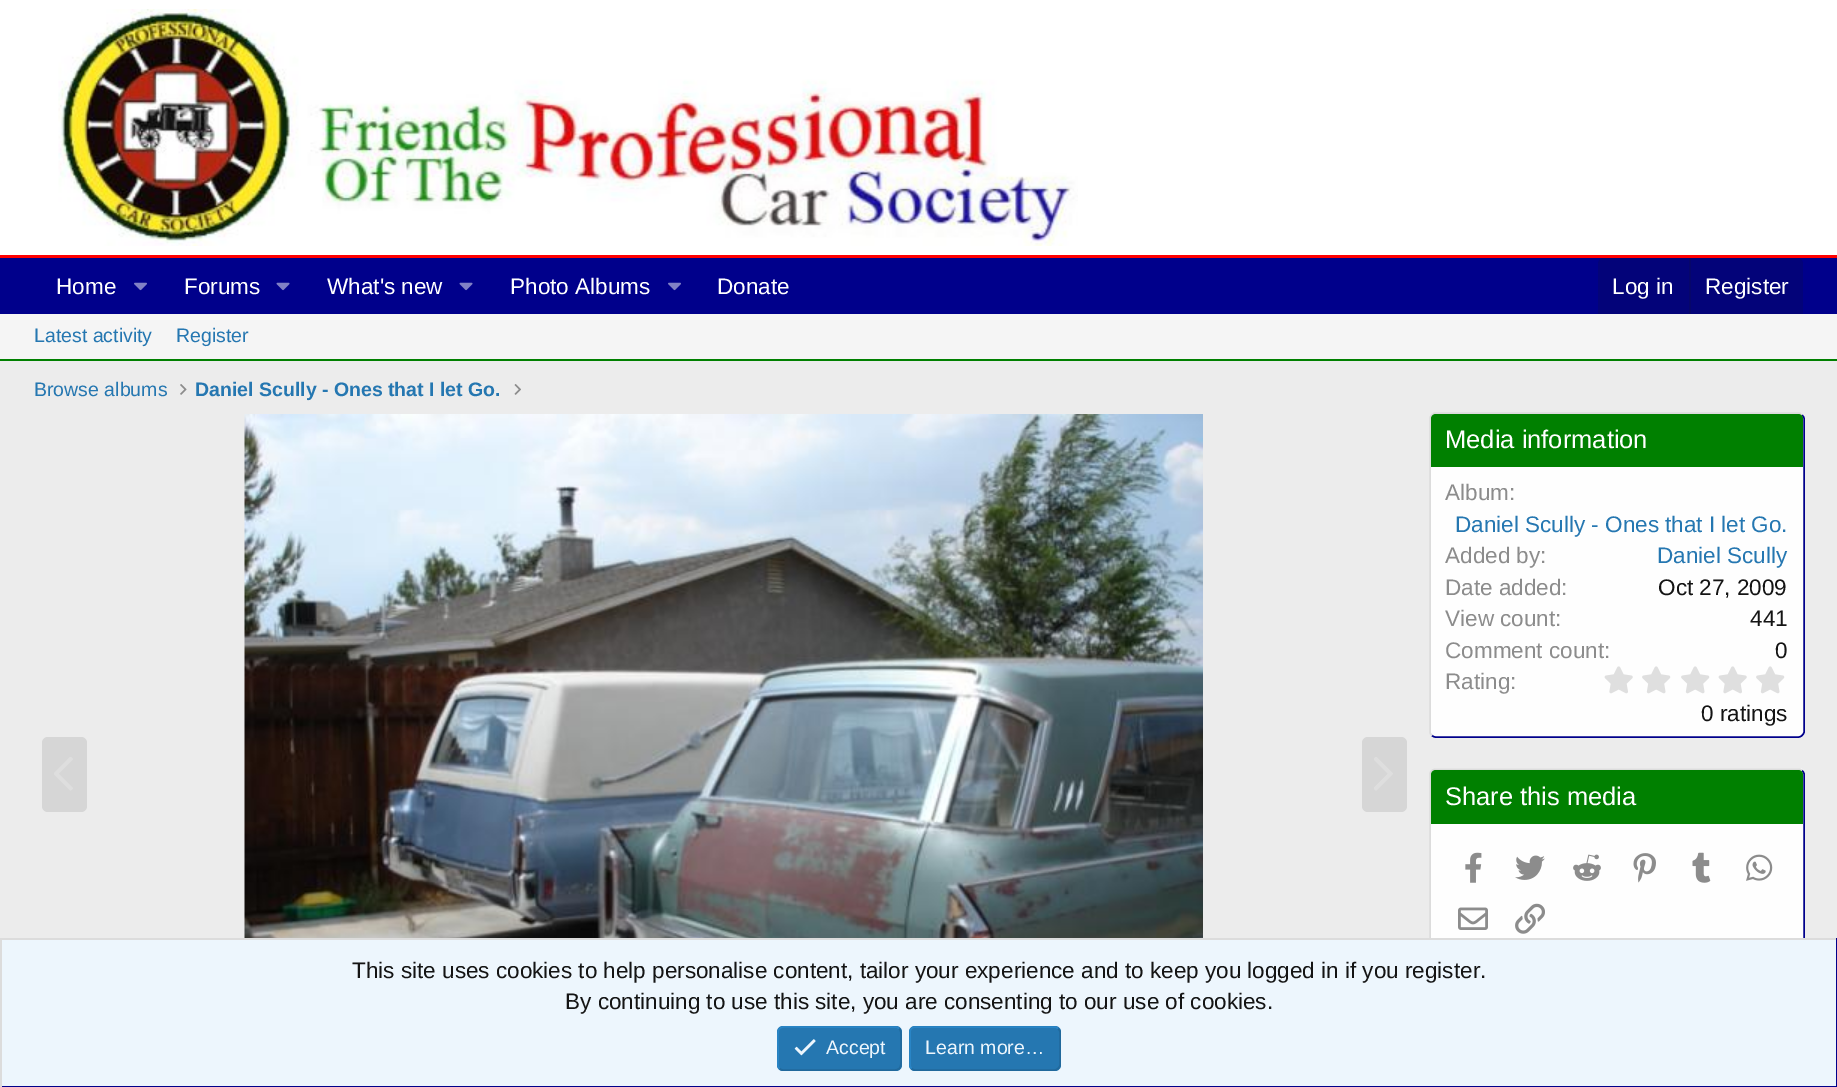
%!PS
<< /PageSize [1837 1087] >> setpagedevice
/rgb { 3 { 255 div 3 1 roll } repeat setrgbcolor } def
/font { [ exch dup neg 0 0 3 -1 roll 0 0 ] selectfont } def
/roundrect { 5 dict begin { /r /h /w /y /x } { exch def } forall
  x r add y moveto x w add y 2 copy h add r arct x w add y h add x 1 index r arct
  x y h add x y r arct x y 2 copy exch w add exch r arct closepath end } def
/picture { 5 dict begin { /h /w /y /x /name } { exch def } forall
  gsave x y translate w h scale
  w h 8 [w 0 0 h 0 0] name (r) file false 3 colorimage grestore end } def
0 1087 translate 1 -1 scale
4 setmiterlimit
236 236 236 rgb
0 0 1837 1087 rectfill
255 255 255 rgb
0 0 1837 255 rectfill
255 0 0 rgb
0 255 1837 3 rectfill
(img/1.rgb) 58 9 1020 237 picture
0 0 139 rgb
0 258 1837 56 rectfill
(img/2.rgb) 134 282 13 9 picture
(img/3.rgb) 276 282 14 9 picture
(img/3.rgb) 459 282 14 9 picture
(img/2.rgb) 668 282 13 9 picture
3 3 121 rgb
1604 258 moveto 1797 258 lineto 1800.5 258 1803 260.5 1803 264 curveto 1803 314 lineto 1598 314 lineto 1598 264 lineto 1598 260.5 1600.5 258 1604 258 curveto closepath fill
[
  [1689 258 2 56 6 6 106]
  [0 314 1837 45 245 245 245]
  [0 359 1837 2 0 128 0]
] { aload pop rgb rectfill } forall
(img/4.rgb) 180 384 7 11 picture
(img/5.rgb) 514 384 7 11 picture
214 214 214 rgb
42 737 45 75 6 roundrect fill
(img/6.rgb) 54 757 19 34 picture
(img/7.rgb) 244 414 959 524 picture
1362 737 45 75 6 roundrect fill
(img/8.rgb) 1374 757 19 34 picture
254 254 254 rgb
1430 413 375 325 6 roundrect fill
0 0 139 rgb
1.5 setlinewidth
1802 415 moveto 1803 416 1804 417 1804 418.5 curveto 1804 732 lineto 1804 733.5 1803 734.5 1802 735.5 curveto 1801 736.5 1800 737 1798.5 737 curveto 1435.5 737 lineto 1434 737 1433 736.5 1432 735.5 curveto stroke
220 220 220 rgb
1432 735.5 moveto 1431 734.5 1430 733.5 1430 732 curveto 1430 418.5 lineto 1430 417 1431 416 1432 415 curveto 1433 414 1434 413 1435.5 413 curveto 1798.5 413 lineto 1800 413 1801 414 1802 415 curveto stroke
0 128 0 rgb
1436 414 moveto 1798 414 lineto 1801 414 1803 416 1803 419 curveto 1803 467 lineto 1431 467 lineto 1431 419 lineto 1431 416 1433 414 1436 414 curveto closepath fill
(img/9.rgb) 1604 666 29 28 picture
(img/10.rgb) 1642 666 29 28 picture
(img/10.rgb) 1681 666 29 28 picture
(img/9.rgb) 1718 666 29 28 picture
(img/10.rgb) 1756 666 29 28 picture
254 254 254 rgb
1430 768 375 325 6 roundrect fill
0 0 139 rgb
1802 770.5 moveto 1803 771.5 1804 772.5 1804 774 curveto 1804 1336.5 lineto 1804 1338 1803 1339 1802 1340 curveto 1801 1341 1800 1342 1798.5 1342 curveto 1435.5 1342 lineto 1434 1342 1433 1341 1432 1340 curveto stroke
220 220 220 rgb
1432 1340 moveto 1431 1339 1430 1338 1430 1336.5 curveto 1430 774 lineto 1430 772.5 1431 771.5 1432 770.5 curveto 1433 769.5 1434 769 1435.5 769 curveto 1798.5 769 lineto 1800 769 1801 769.5 1802 770.5 curveto stroke
0 128 0 rgb
1436 770 moveto 1798 770 lineto 1801 770 1803 772 1803 775 curveto 1803 824 lineto 1431 824 lineto 1431 775 lineto 1431 772 1433 770 1436 770 curveto closepath fill
(img/11.rgb) 1465 852 17 31 picture
(img/12.rgb) 1515 855 30 25 picture
(img/13.rgb) 1573 854 28 27 picture
(img/14.rgb) 1633 853 23 30 picture
(img/15.rgb) 1692 852 19 31 picture
(img/16.rgb) 1746 854 27 27 picture
(img/17.rgb) 1458 907 30 23 picture
(img/18.rgb) 1515 903 30 31 picture
[
  [2 940 1834 146 237 246 253]
  [0 938 1837 2 220 220 220]
  [1836 938 1 149 0 0 139]
  [0 1086 1837 1 0 0 139]
  [0 938 2 149 220 220 220]
] { aload pop rgb rectfill } forall
37 119 177 rgb
777 1026 125 45 6 roundrect fill
33 105 156 rgb
899 1028.5 moveto 901.5 1030.5 901 1034.5 901 1037.5 curveto 901 1048.5 lineto 901 1074 904 1070 877 1070 curveto 783 1070 lineto 781.5 1070 780.5 1069.5 779.5 1068.5 curveto stroke
41 133 198 rgb
779.5 1068.5 moveto 777 1066.5 778 1062.5 778 1059.5 curveto 778 1048.5 lineto 778 1023 774.5 1027 802 1027 curveto 895.5 1027 lineto 897 1027 898 1027.5 899 1028.5 curveto stroke
(img/19.rgb) 794 1039 22 17 picture
37 119 177 rgb
909 1026 152 45 6 roundrect fill
33 105 156 rgb
1058 1028.5 moveto 1059 1029.5 1060 1030.5 1060 1032 curveto 1060 1065 lineto 1060 1066.5 1059 1067.5 1058 1068.5 curveto 1057 1069.5 1056 1070 1054.5 1070 curveto 915 1070 lineto 913.5 1070 912.5 1069.5 911.5 1068.5 curveto stroke
41 133 198 rgb
911.5 1068.5 moveto 910.5 1067.5 910 1066.5 910 1065 curveto 910 1032 lineto 910 1030.5 910.5 1029.5 911.5 1028.5 curveto 912.5 1027.5 913.5 1027 915 1027 curveto 1054.5 1027 lineto 1056 1027 1057 1027.5 1058 1028.5 curveto stroke
/LiberationSans-Regular 22.5 font
255 255 255 rgb
[
  [(Home) 56 294]
  [(Forums) 184 294]
  [(What's new) 327 294]
  [(Photo Albums) 510 294]
  [(Donate) 717 294]
  [(Log in) 1612 294]
  [(Register) 1705 294]
] { aload pop moveto show } forall
/LiberationSans-Regular 19.5 font
37 119 177 rgb
[
  [(Latest activity) 34 342]
  [(Register) 176 342]
  [(Browse albums) 34 396]
] { aload pop moveto show } forall
/LiberationSans-Bold 19.5 font
195 396 moveto (Daniel Scully - Ones that I let Go.) show
/LiberationSans-Regular 25.5 font
255 255 255 rgb
1445 448 moveto (Media information) show
/LiberationSans-Regular 22.5 font
140 140 140 rgb
1445 500 moveto (Album:) show
37 119 177 rgb
1455 532 moveto (Daniel Scully - Ones that I let Go.) show
140 140 140 rgb
1445 563 moveto (Added by:) show
37 119 177 rgb
1657 563 moveto (Daniel Scully) show
140 140 140 rgb
1445 595 moveto (Date added:) show
20 20 20 rgb
1658 595 moveto (Oct 27, 2009) show
140 140 140 rgb
1445 626 moveto (View count:) show
20 20 20 rgb
1750 626 moveto (441) show
140 140 140 rgb
1445 658 moveto (Comment count:) show
20 20 20 rgb
1775 658 moveto (0) show
140 140 140 rgb
1445 689 moveto (Rating:) show
20 20 20 rgb
1701 721 moveto (0 ratings) show
/LiberationSans-Regular 25.5 font
255 255 255 rgb
1445 805 moveto (Share this media) show
/LiberationSans-Regular 22.5 font
20 20 20 rgb
352 978 moveto (This site uses cookies to help personalise content, tailor your experience and to keep you logged in if you register.) show
565 1009 moveto (By continuing to use this site, you are consenting to our use of cookies.) show
/LiberationSans-Regular 19.5 font
237 246 253 rgb
826 1054 moveto (Accept) show
925 1054 moveto (Learn more…) show
showpage
